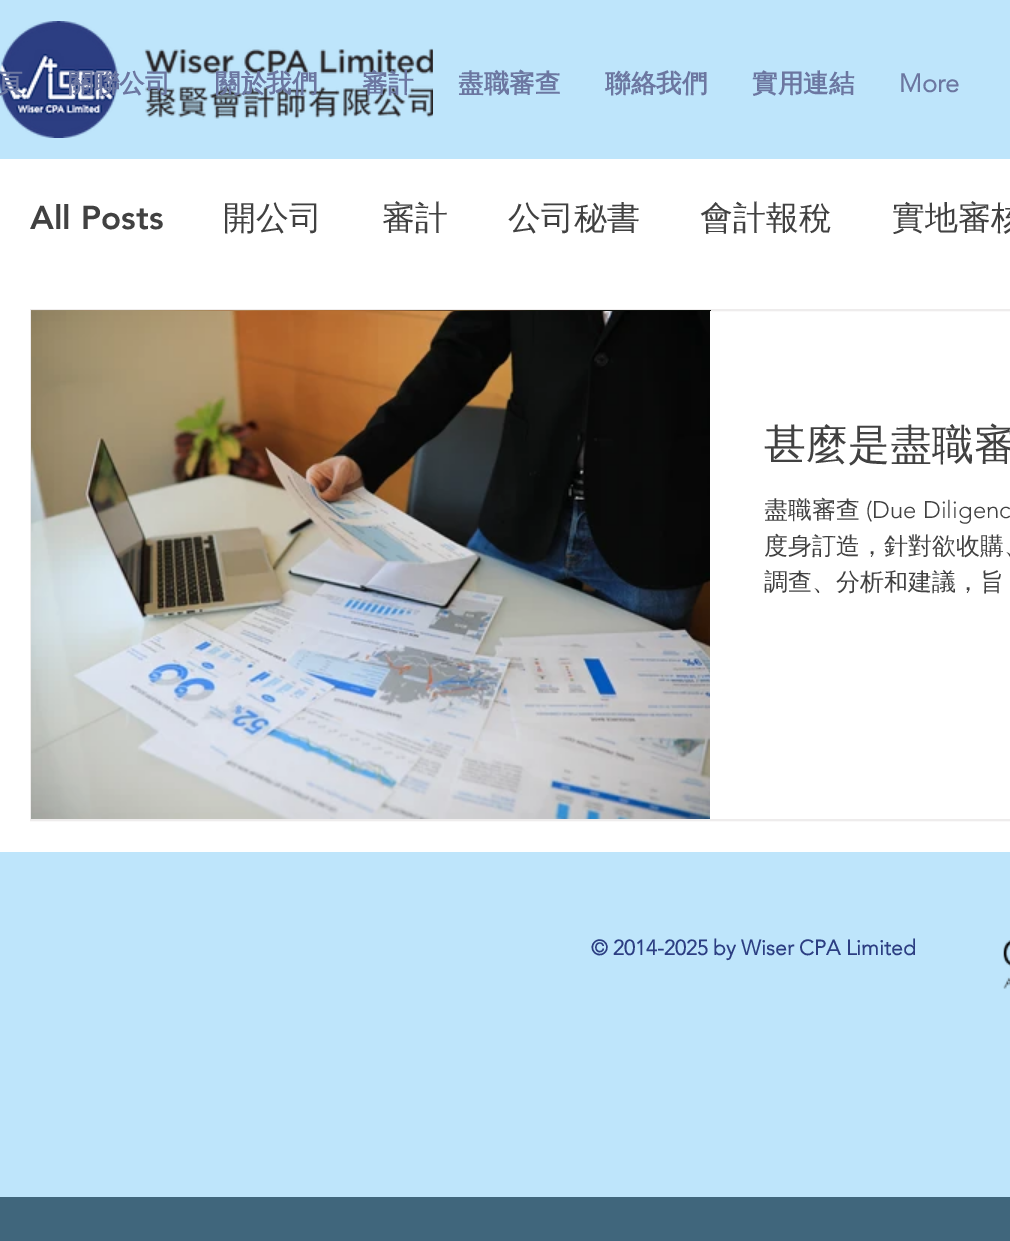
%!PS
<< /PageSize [1010 1241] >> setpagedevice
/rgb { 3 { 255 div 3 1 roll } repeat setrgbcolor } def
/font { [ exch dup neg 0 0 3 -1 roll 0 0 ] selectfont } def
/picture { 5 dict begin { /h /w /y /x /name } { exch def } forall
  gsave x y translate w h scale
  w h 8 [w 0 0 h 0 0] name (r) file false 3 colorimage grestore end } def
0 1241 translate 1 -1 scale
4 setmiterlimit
64 102 124 rgb
0 0 1010 1241 rectfill
190 229 251 rgb
0 0 1010 159 rectfill
(img/1.rgb) 0 21 433 117 picture
255 255 255 rgb
0 159 1010 693 rectfill
238 236 236 rgb
2 setlinewidth
31 310 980 510 rectstroke
(img/2.rgb) 31 310 680 1 picture
(img/3.rgb) 31 311 679 508 picture
190 229 251 rgb
0 852 1010 345 rectfill
(img/4.rgb) 1003 940 7 49 picture
/WenQuanYiZenHei-Bold 25.5 font
108 119 161 rgb
[
  [(頁) -3 92]
  [(關聯公司) 68 92]
  [(關於我們) 215 92]
  [(審計) 362 92]
  [(盡職審查) 458 92]
  [(聯絡我們) 605 92]
  [(實用連結) 752 92]
] { aload pop moveto show } forall
/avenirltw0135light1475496-Bold 25.5 font
899 92 moveto (More) show
/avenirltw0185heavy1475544-Black 33 font
65 65 65 rgb
30 229 moveto (All Posts) show
/WenQuanYiZenHei-Medium 33 font
[
  [(開公司) 223 229]
  [(審計) 382 229]
  [(公司秘書) 508 229]
  [(會計報稅) 700 229]
  [(實地審核) 892 229]
] { aload pop moveto show } forall
/WenQuanYiZenHei-Medium 42 font
764 459 moveto (甚麼是盡職審) show
/WenQuanYiZenHei-Medium 24 font
764 518 moveto (盡職審查) show
/avenirltw0135light1475496-Light 24 font
866 518 moveto (\(Due Diligenc) show
/WenQuanYiZenHei-Medium 24 font
764 554 moveto (度身訂造，針對欲收購、) show
764 590 moveto (調查、分析和建議，旨) show
/avenirltw0135light1475496-Bold 21 font
44 62 130 rgb
591 955 moveto (© 2014-2025 by Wiser CPA Limited) show
showpage
